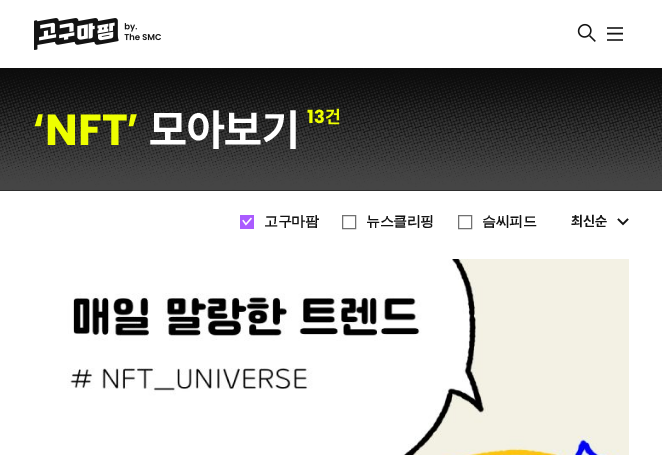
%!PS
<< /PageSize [662 455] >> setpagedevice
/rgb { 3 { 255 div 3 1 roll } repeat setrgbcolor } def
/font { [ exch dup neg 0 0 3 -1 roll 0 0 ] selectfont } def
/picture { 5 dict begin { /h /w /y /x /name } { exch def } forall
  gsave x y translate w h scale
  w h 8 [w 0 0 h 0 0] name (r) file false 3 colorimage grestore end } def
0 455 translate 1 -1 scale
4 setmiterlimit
255 255 255 rgb
0 0 662 455 rectfill
(img/1.rgb) 34 18 127 32 picture
(img/2.rgb) 577 23 19 19 picture
66 66 66 rgb
607 27 16 2 rectfill
19 19 19 rgb
1.6 setlinewidth
607 33.5 moveto 623 33.5 lineto stroke
66 66 66 rgb
607 39 16 2 rectfill
(img/3.rgb) 0 68 662 123 picture
(img/4.rgb) 240 215 14 14 picture
113 113 113 rgb
1 setlinewidth
342.5 215.5 13 13 rectstroke
458.5 215.5 13 13 rectstroke
19 19 19 rgb
1.6 setlinewidth
618 219 moveto 623 224 lineto 628 219 lineto stroke
(img/5.rgb) 67 259 562 196 picture
/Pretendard-Bold 43.5 font
238 255 0 rgb
33 145 moveto (‘) show
/Poppins-Bold 43.5 font
45 145 moveto (NFT) show
/Pretendard-Bold 43.5 font
127 145 moveto (’) show
255 255 255 rgb
149 145 moveto (모아보기) show
/Poppins-Bold 18 font
238 255 0 rgb
307 123 moveto (13) show
/Pretendard-Bold 18 font
325 123 moveto (건) show
/WenQuanYiZenHei-Bold 14 font
19 19 19 rgb
264 226 moveto -0.5 0 (고구마팜) ashow
366 226 moveto -0.5 0 (뉴스클리핑) ashow
482 226 moveto -0.5 0 (슴씨피드) ashow
/Pretendard-Bold 14 font
571 226 moveto (최신순) show
showpage
